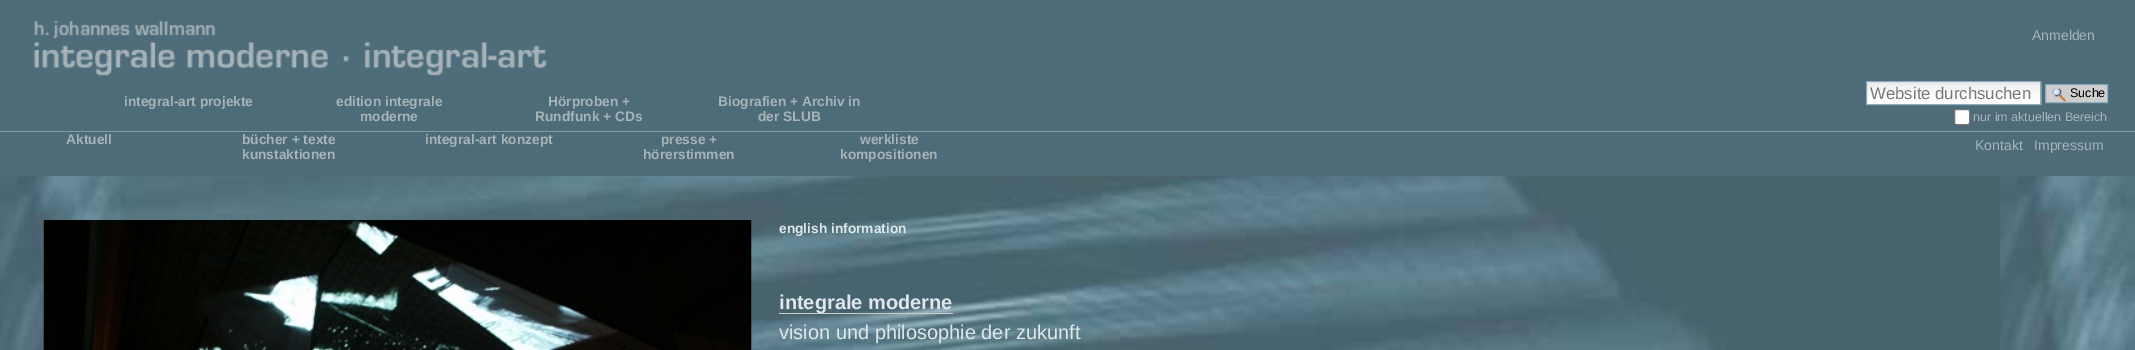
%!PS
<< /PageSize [2135 350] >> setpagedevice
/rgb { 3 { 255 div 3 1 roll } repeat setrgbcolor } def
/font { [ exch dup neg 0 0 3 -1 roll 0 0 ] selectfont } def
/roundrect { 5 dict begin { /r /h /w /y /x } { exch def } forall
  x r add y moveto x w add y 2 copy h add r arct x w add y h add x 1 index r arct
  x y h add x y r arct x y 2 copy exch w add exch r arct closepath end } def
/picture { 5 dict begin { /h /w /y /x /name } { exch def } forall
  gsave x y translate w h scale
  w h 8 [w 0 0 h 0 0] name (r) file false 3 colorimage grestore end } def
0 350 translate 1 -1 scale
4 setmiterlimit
255 255 255 rgb
0 0 2135 350 rectfill
(img/1.rgb) 0 176 2135 174 picture
77 107 121 rgb
0 0 2135 176 rectfill
(img/2.rgb) 33 21 514 55 picture
132 154 166 rgb
0 131 2135 1 rectfill
255 255 255 rgb
1867 82 173 1 rectfill
(img/3.rgb) 1867 82 175 23 picture
140 172 187 rgb
1866.5 81.5 174 23 rectstroke
206 206 206 rgb
2046 85 61 17 rectfill
(img/4.rgb) 2052 88 15 14 picture
140 172 187 rgb
2045.5 84.5 62 18 rectstroke
255 255 255 rgb
1954.5 109.5 15 15 2 roundrect gsave fill grestore
118 118 118 rgb
stroke
(img/5.rgb) 43 220 709 130 picture
204 204 204 rgb
779 313 174 1 rectfill
/LiberationSans-Regular 14 font
166 180 186 rgb
2032 40 moveto (Anmelden) show
/LiberationSans-Bold 13.75 font
[
  [(integral-art projekte) 124 106]
  [(edition integrale) 336 106]
  [(moderne) 360 121]
  [(Hörproben +) 548 106]
  [(Rundfunk + CDs) 535 121]
  [(Biografien + Archiv in) 718 106]
  [(der SLUB) 758 121]
  [(Aktuell) 66 144]
  [(bücher + texte) 242 144]
  [(kunstaktionen) 242 159]
  [(integral-art konzept) 425 144]
  [(presse +) 661 144]
  [(hörerstimmen) 643 159]
  [(werkliste) 860 144]
  [(kompositionen) 840 159]
] { aload pop moveto show } forall
/LiberationSans-Regular 16.75 font
118 121 124 rgb
1870 99 moveto (Website durchsuchen) show
/LiberationSans-Regular 12.5 font
0 0 0 rgb
2070 97 moveto (Suche) show
166 180 186 rgb
1973 121 moveto (nur im aktuellen Bereich) show
/LiberationSans-Regular 14 font
1975 150 moveto (Kontakt) show
2034 150 moveto (Impressum) show
/LiberationSans-Bold 13.75 font
222 231 236 rgb
779 233 moveto (english information) show
/LiberationSans-Bold 20 font
779 309 moveto (integrale moderne) show
/LiberationSans-Regular 20 font
779 339 moveto (vision und philosophie der zukunft) show
showpage
